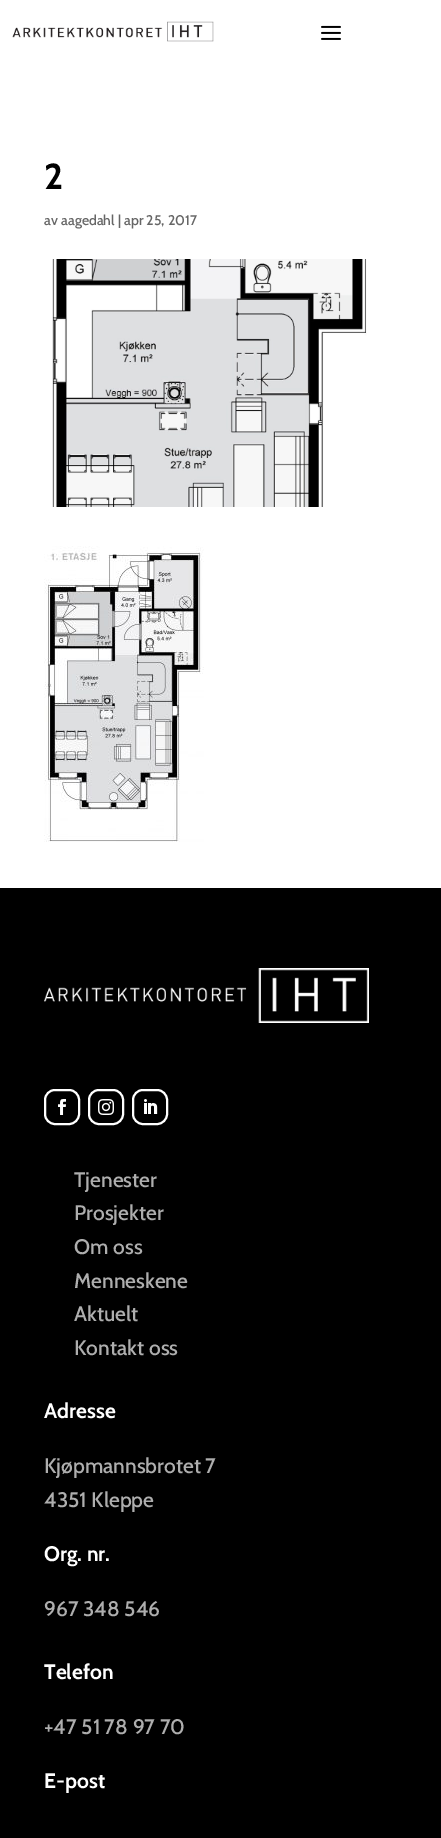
%!PS
<< /PageSize [441 1838] >> setpagedevice
/rgb { 3 { 255 div 3 1 roll } repeat setrgbcolor } def
/font { [ exch dup neg 0 0 3 -1 roll 0 0 ] selectfont } def
/roundrect { 5 dict begin { /r /h /w /y /x } { exch def } forall
  x r add y moveto x w add y 2 copy h add r arct x w add y h add x 1 index r arct
  x y h add x y r arct x y 2 copy exch w add exch r arct closepath end } def
/picture { 5 dict begin { /h /w /y /x /name } { exch def } forall
  gsave x y translate w h scale
  w h 8 [w 0 0 h 0 0] name (r) file false 3 colorimage grestore end } def
0 1838 translate 1 -1 scale
4 setmiterlimit
255 255 255 rgb
0 0 441 1838 rectfill
(img/1.rgb) 12 21 202 21 picture
(img/2.rgb) 321 25 20 15 picture
(img/3.rgb) 52 259 315 248 picture
(img/4.rgb) 44 546 160 296 picture
0 0 0 rgb
0 888 441 950 rectfill
(img/5.rgb) 44 968 325 55 picture
255 255 255 rgb
2 setlinewidth
45 1090 34 34 10 roundrect stroke
(img/6.rgb) 58 1099 8 16 picture
89 1090 34 34 10 roundrect stroke
(img/7.rgb) 98 1099 16 16 picture
133 1090 34 34 10 roundrect stroke
(img/8.rgb) 144 1099 14 15 picture
/Cabin-Bold 36 font
0 0 0 rgb
44 189 moveto (2) show
/Cabin-Medium 14 font
102 102 102 rgb
44 225 moveto (av aagedahl | apr 25, 2017) show
/Cabin-Medium 21 font
174 174 174 rgb
[
  [(Tjenester) 74 1187]
  [(Prosjekter) 74 1220]
  [(Om oss) 74 1254]
  [(Menneskene) 74 1288]
  [(Aktuelt) 74 1321]
  [(Kontakt oss) 74 1355]
] { aload pop moveto show } forall
/Cabin-Bold 21 font
255 255 255 rgb
44 1418 moveto (Adresse) show
/Cabin-Medium 21 font
174 174 174 rgb
44 1473 moveto (Kjøpmannsbrotet 7) show
44 1507 moveto (4351 Kleppe) show
/Cabin-Bold 21 font
255 255 255 rgb
44 1561 moveto (Org. nr.) show
/Cabin-Medium 21 font
174 174 174 rgb
44 1616 moveto (967 348 546) show
/Cabin-Bold 21 font
255 255 255 rgb
44 1679 moveto (Telefon) show
/Cabin-Medium 21 font
174 174 174 rgb
44 1734 moveto (+47 51 78 97 70) show
/Cabin-Bold 21 font
255 255 255 rgb
44 1788 moveto (E-post) show
showpage
